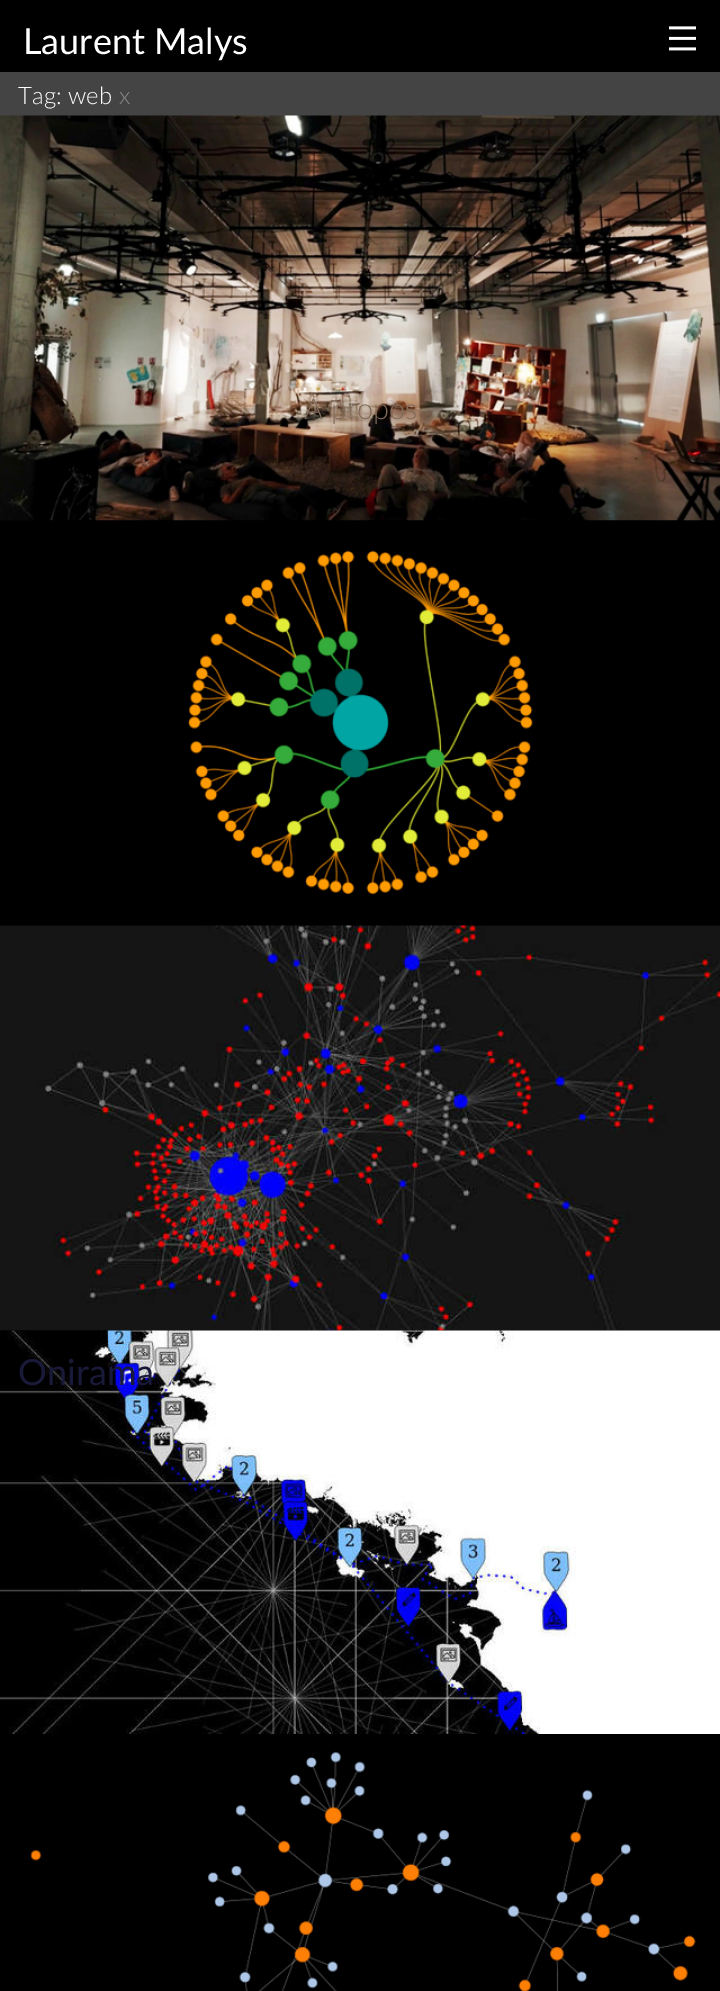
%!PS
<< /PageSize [720 1991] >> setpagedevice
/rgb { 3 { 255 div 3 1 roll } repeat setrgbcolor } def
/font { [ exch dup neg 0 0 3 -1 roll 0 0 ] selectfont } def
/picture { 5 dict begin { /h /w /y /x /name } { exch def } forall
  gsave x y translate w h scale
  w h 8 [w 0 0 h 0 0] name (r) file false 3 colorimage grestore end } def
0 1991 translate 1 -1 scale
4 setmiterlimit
0 0 0 rgb
0 0 720 1991 rectfill
(img/1.rgb) 669 26 27 25 picture
68 68 68 rgb
0 72 720 44 rectfill
(img/2.rgb) 0 115 720 406 picture
(img/3.rgb) 50 520 665 375 picture
(img/4.rgb) 0 925 720 406 picture
(img/5.rgb) 0 1330 720 404 picture
(img/6.rgb) 30 1751 666 240 picture
/Lato-Regular 36 font
255 255 255 rgb
23 54 moveto (Laurent Malys) show
/Lato-Light 29 font
130 107 90 rgb
304 419 moveto (À propos) show
/Lato-Light 24 font
255 255 255 rgb
18 104 moveto (Tag: web) show
136 136 136 rgb
119 104 moveto (x) show
/Lato-Regular 36 font
25 25 57 rgb
18 1385 moveto (Onirama) show
showpage
